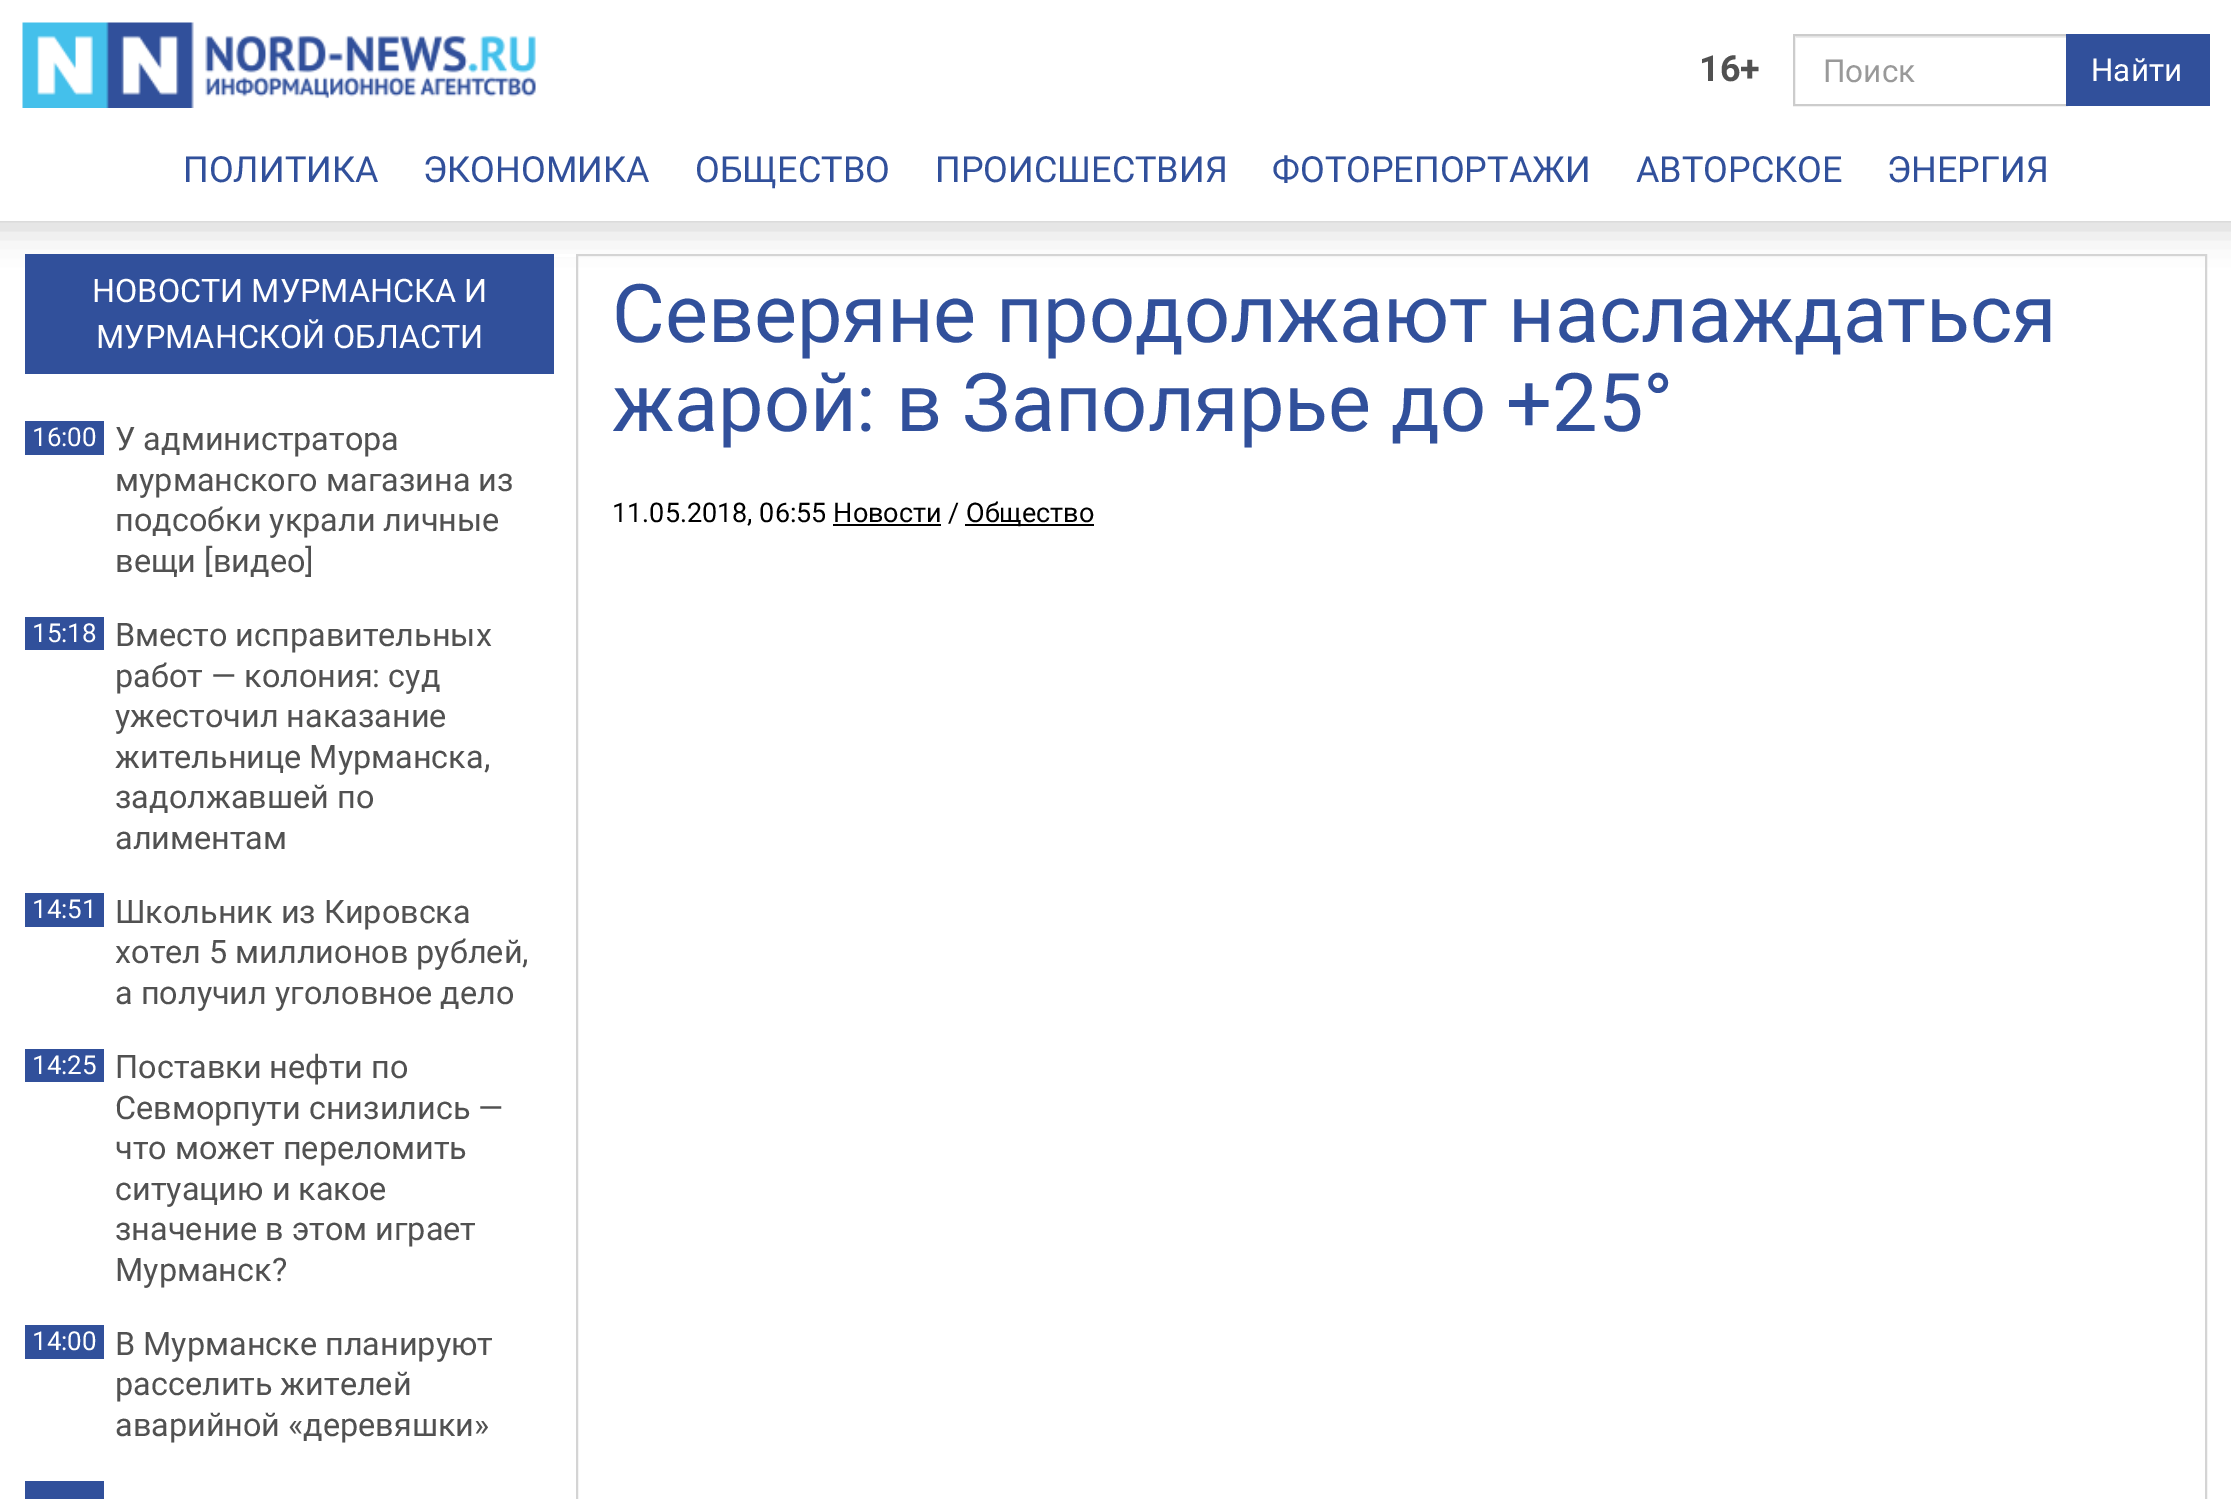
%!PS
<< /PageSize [2231 1499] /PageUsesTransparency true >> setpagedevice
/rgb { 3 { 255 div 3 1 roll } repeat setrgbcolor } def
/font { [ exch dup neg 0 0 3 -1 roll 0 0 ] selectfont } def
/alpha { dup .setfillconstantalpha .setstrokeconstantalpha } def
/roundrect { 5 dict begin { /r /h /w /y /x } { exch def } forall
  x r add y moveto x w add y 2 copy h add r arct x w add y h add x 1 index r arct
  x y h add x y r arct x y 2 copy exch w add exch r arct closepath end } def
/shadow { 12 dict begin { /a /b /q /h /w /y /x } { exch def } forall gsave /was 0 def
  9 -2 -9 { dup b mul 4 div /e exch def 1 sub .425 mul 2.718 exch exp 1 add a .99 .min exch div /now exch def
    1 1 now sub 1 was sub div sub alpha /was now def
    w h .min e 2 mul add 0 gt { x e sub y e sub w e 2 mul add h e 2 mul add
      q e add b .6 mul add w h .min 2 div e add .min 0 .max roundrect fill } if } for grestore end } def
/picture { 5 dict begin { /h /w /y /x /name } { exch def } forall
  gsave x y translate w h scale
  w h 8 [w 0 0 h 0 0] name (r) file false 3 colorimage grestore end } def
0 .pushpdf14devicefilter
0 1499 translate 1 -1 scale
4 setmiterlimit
255 255 255 rgb
0 0 2231 1499 rectfill
203 203 203 rgb
-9 -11 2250 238 0 18 1 shadow
255 255 255 rgb
0 0 2231 221 rectfill
(img/1.rgb) 22 22 514 86 picture
236 236 236 rgb
1796 36 270 2 rectfill
204 204 204 rgb
2 setlinewidth
1794 35 273 70 rectstroke
[
  [2066 34 144 72 49 80 155]
  [25 254 2180 3 255 255 255]
  [25 254 529 120 49 80 155]
  [25 421 79 34 49 80 155]
  [25 617 79 33 49 80 155]
  [25 893 79 34 49 80 155]
  [25 1049 79 33 49 80 155]
  [25 1325 79 34 49 80 155]
  [25 1481 79 18 49 80 155]
] { aload pop rgb rectfill } forall
212 212 212 rgb
577 255 1629 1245 rectstroke
0 0 0 rgb
965 524 129 2 rectfill
833 524 108 2 rectfill
/Roboto-Bold 36 font
81 81 81 rgb
1699 81 moveto (16+) show
/Roboto-Regular 31.5 font
153 153 153 rgb
1823 82 moveto (Поиск) show
255 255 255 rgb
2091 81 moveto (Найти) show
/Roboto-Regular 36 font
49 80 155 rgb
[
  [(ПОЛИТИКА) 183 182]
  [(ЭКОНОМИКА) 423 182]
  [(ОБЩЕСТВО) 695 182]
  [(ПРОИСШЕСТВИЯ) 935 182]
  [(ФОТОРЕПОРТАЖИ) 1272 182]
  [(АВТОРСКОЕ) 1636 182]
  [(ЭНЕРГИЯ) 1887 182]
] { aload pop moveto show } forall
/Roboto-Regular 32.4 font
255 255 255 rgb
92 302 moveto (НОВОСТИ МУРМАНСКА И) show
96 348 moveto (МУРМАНСКОЙ ОБЛАСТИ) show
/Roboto-Regular 26 font
32 446 moveto (16:00) show
/Roboto-Regular 32.4 font
81 81 81 rgb
[
  [(У администратора) 115 450]
  [(мурманского магазина из) 115 491]
  [(подсобки украли личные) 115 531]
  [(вещи [видео]) 115 572]
] { aload pop moveto show } forall
/Roboto-Regular 26 font
255 255 255 rgb
32 642 moveto (15:18) show
/Roboto-Regular 32.4 font
81 81 81 rgb
[
  [(Вместо исправительных) 115 646]
  [(работ — колония: суд) 115 687]
  [(ужесточил наказание) 115 727]
  [(жительнице Мурманска,) 115 768]
  [(задолжавшей по) 115 808]
  [(алиментам) 115 849]
] { aload pop moveto show } forall
/Roboto-Regular 26 font
255 255 255 rgb
32 918 moveto (14:51) show
/Roboto-Regular 32.4 font
81 81 81 rgb
[
  [(Школьник из Кировска) 115 923]
  [(хотел 5 миллионов рублей,) 115 963]
  [(а получил уголовное дело) 115 1004]
] { aload pop moveto show } forall
/Roboto-Regular 26 font
255 255 255 rgb
32 1074 moveto (14:25) show
/Roboto-Regular 32.4 font
81 81 81 rgb
[
  [(Поставки нефти по) 115 1078]
  [(Севморпути снизились —) 115 1119]
  [(что может переломить) 115 1159]
  [(ситуацию и какое) 115 1200]
  [(значение в этом играет) 115 1240]
  [(Мурманск?) 115 1281]
] { aload pop moveto show } forall
/Roboto-Regular 26 font
255 255 255 rgb
32 1350 moveto (14:00) show
/Roboto-Regular 32.4 font
81 81 81 rgb
[
  [(В Мурманске планируют) 115 1355]
  [(расселить жителей) 115 1395]
  [(аварийной «деревяшки») 115 1436]
] { aload pop moveto show } forall
/Roboto-Regular 81 font
49 80 155 rgb
612 342 moveto (Северяне продолжают наслаждаться) show
612 431 moveto (жарой: в Заполярье до +25°) show
/Roboto-Regular 27 font
0 0 0 rgb
612 522 moveto (11.05.2018, 06:55 Новости /) show
966 522 moveto (Общество) show
.poppdf14devicefilter showpage
